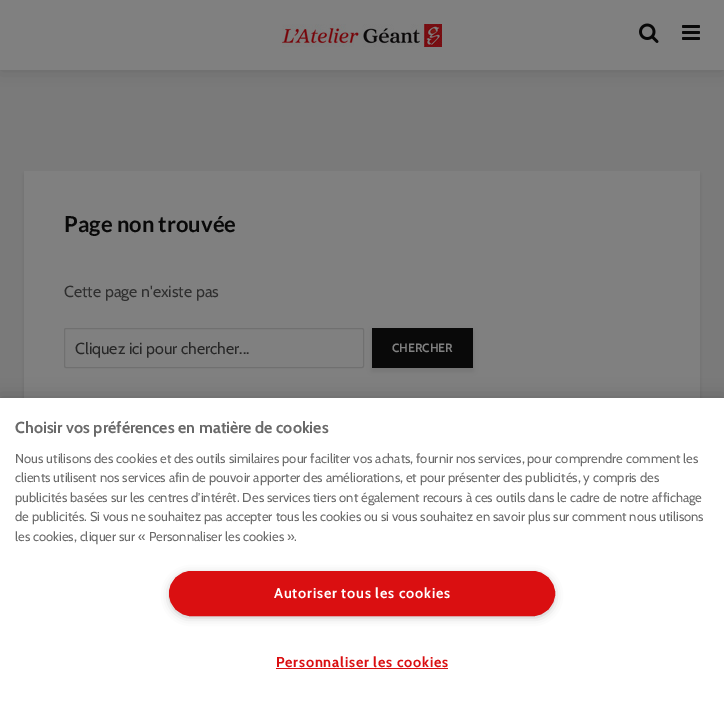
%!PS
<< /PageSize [724 714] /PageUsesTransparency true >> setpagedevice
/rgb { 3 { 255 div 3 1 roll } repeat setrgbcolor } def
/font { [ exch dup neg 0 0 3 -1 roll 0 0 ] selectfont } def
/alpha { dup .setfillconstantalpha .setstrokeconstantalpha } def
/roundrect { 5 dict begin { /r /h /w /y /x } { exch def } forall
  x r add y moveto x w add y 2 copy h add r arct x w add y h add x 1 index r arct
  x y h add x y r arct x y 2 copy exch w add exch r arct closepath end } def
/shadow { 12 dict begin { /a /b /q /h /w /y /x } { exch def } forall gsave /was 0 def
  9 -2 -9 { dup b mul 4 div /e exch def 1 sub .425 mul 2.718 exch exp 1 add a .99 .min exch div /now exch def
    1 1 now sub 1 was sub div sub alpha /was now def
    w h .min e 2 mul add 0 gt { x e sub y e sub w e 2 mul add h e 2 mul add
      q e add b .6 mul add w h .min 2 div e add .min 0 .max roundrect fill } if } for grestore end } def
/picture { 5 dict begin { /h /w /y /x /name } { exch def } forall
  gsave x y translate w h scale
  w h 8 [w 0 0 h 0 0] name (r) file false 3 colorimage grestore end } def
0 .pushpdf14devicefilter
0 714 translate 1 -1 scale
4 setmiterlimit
122 122 122 rgb
0 0 724 714 rectfill
0 0 0 rgb
0 0 724 70 0 10 0.15 shadow
128 128 128 rgb
0 0 724 70 rectfill
(img/1.rgb) 282 24 160 23 picture
(img/2.rgb) 639 23 20 20 picture
(img/3.rgb) 682 25 18 15 picture
0 1 1 rgb
24 174 676 245 0 2.5 0.1 shadow
128 128 128 rgb
24 171 676 227 rectfill
112 112 112 rgb
64.5 328.5 299 39 1.5 roundrect stroke
0 0 0 rgb
372 331 101 40 0 2.5 0.1 shadow
9 9 9 rgb
372 328 101 40 rectfill
0 0 0 rgb
0 398 724 316 0 9 0.2 shadow
255 255 255 rgb
0 398 724 316 rectfill
153 153 153 rgb
172 576 380 39 19.5 5 1 shadow
218 15 17 rgb
169.5 571.5 385 44 22 roundrect gsave fill grestore
stroke
276 668 172 1 rectfill
/Lato-Bold 22 font
9 9 9 rgb
64 232 moveto (Page non trouvée) show
/Cabin-Regular 16 font
47 47 47 rgb
64 297 moveto (Cette page n'existe pas) show
39 39 39 rgb
75 354 moveto (Cliquez ici pour chercher...) show
/Cabin-Bold 12 font
128 128 128 rgb
392 352 moveto (CHERCHER) show
/Cabin-Bold 16 font
105 105 105 rgb
15 433 moveto (Choisir vos préférences en matière de cookies) show
/Cabin-Regular 13 font
[
  [(Nous utilisons des cookies et des outils similaires pour faciliter vos achats, fournir nos services, pour comprendre comment les) 15 463]
  [(clients utilisent nos services afin de pouvoir apporter des améliorations, et pour présenter des publicités, y compris des) 15 482]
  [(publicités basées sur les centres d’intérêt. Des services tiers ont également recours à ces outils dans le cadre de notre affichage) 15 502]
  [(de publicités. Si vous ne souhaitez pas accepter tous les cookies ou si vous souhaitez en savoir plus sur comment nous utilisons) 15 521]
  [(les cookies, cliquer sur « Personnaliser les cookies ».) 15 541]
] { aload pop moveto show } forall
/Cabin-Bold 14.4 font
255 255 255 rgb
274 598 moveto 0.75 0 (Autoriser tous les cookies) ashow
218 15 17 rgb
276 667 moveto 0.75 0 (Personnaliser les cookies) ashow
.poppdf14devicefilter showpage
